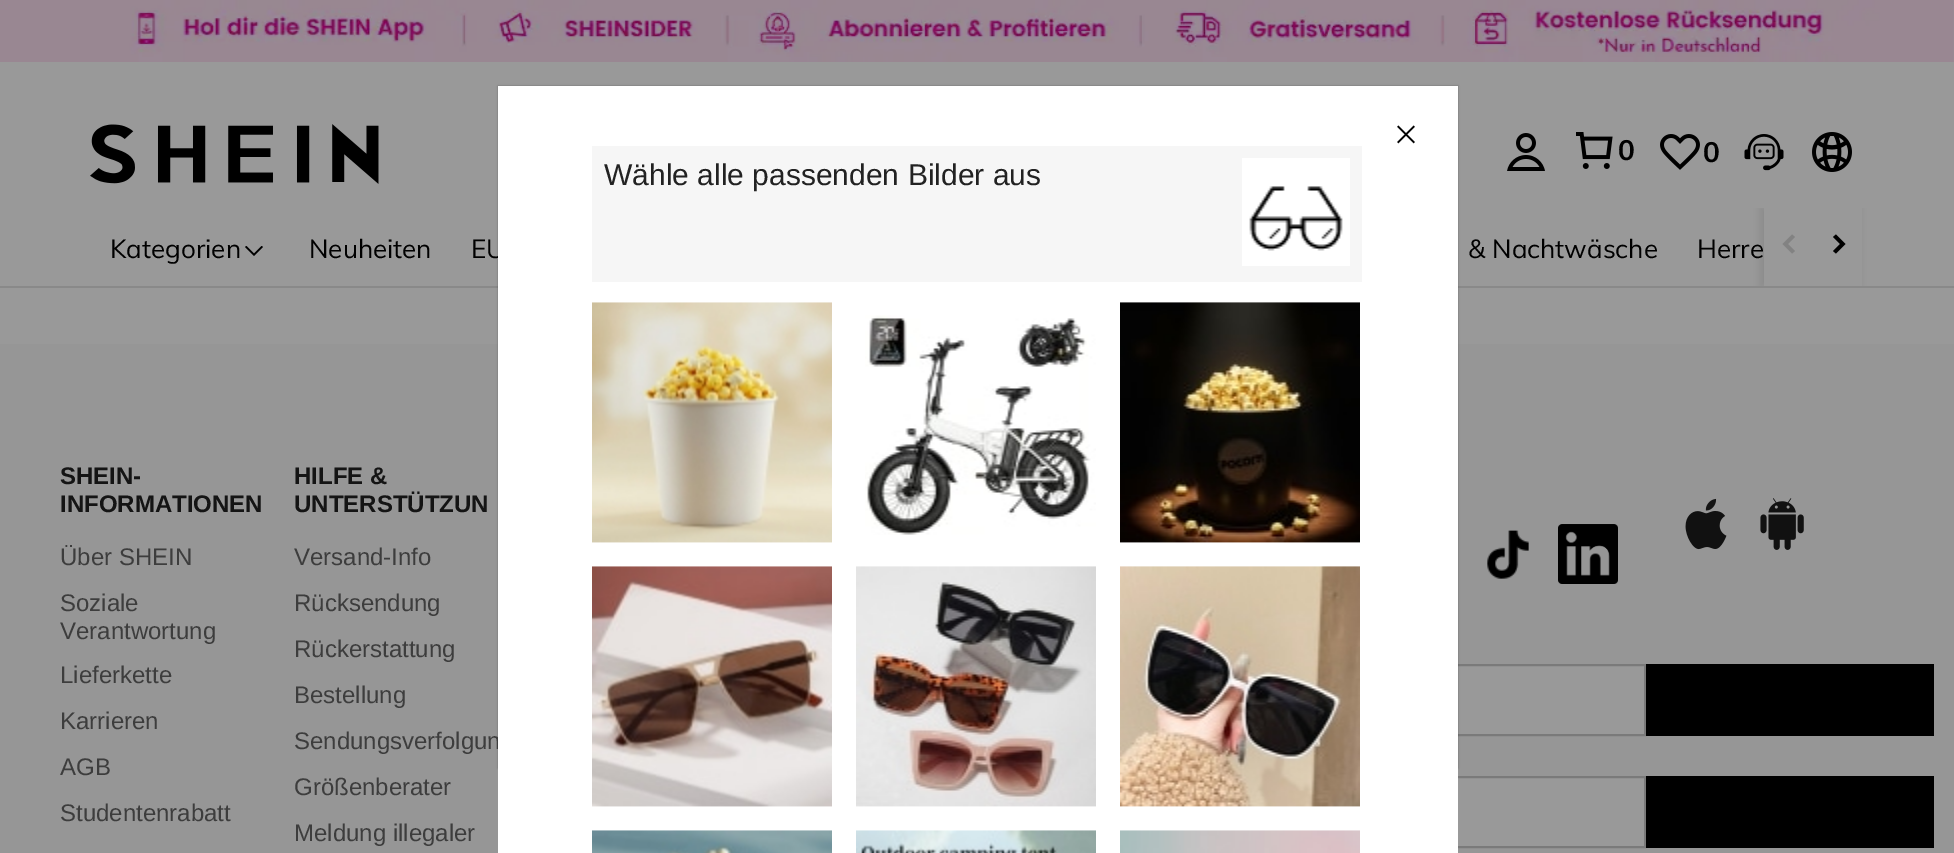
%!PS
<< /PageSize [1954 853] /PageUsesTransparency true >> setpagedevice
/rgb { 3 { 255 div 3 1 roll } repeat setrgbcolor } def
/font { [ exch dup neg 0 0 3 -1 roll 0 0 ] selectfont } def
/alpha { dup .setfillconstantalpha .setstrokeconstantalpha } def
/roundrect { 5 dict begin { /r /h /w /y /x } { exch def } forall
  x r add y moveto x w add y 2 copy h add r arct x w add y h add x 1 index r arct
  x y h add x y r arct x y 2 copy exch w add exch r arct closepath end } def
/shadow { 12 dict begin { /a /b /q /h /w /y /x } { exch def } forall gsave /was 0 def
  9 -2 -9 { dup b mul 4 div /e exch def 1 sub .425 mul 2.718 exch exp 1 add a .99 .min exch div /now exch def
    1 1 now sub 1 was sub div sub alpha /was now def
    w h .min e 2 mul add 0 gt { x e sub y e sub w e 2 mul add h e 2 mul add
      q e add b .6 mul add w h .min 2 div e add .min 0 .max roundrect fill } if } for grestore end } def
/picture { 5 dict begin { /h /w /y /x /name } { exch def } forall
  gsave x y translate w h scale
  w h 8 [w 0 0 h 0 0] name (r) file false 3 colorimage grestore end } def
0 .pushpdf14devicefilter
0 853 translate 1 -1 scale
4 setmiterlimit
153 153 153 rgb
0 0 1954 853 rectfill
(img/1.rgb) 0 0 1954 62 picture
(img/2.rgb) 90 124 289 60 picture
(img/3.rgb) 1507 133 38 38 picture
(img/4.rgb) 1576 132 37 37 picture
(img/5.rgb) 1660 134 40 36 picture
(img/6.rgb) 1744 134 40 37 picture
(img/7.rgb) 1812 132 40 40 picture
137 137 137 rgb
0 286 1954 2 rectfill
0 0 0 rgb
261.5 246 moveto 263 247 lineto 254 256 lineto 245 247 lineto 246.5 246 lineto 254 253.5 lineto closepath fill
gsave
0 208 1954 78 rectclip
1760 208 100 78 0 3 0.08 shadow
grestore
153 153 153 rgb
1764 208 98 78 rectfill
130 130 130 rgb
1792 234.5 moveto 1795 237 lineto 1788 244 lineto 1795 251 lineto 1792 253.5 lineto 1782.5 244 lineto closepath eofill
0 0 0 rgb
1833 237 moveto 1836 234.5 lineto 1845.5 244 lineto 1836 253.5 lineto 1833 251 lineto 1840 244 lineto closepath eofill
150 150 150 rgb
0 344 1954 509 rectfill
(img/8.rgb) 1487 530 42 49 picture
(img/9.rgb) 1558 524 60 60 picture
(img/10.rgb) 1685 498 42 52 picture
(img/11.rgb) 1760 498 44 52 picture
153 153 153 rgb
1458 666 186 68 rectfill
122 122 122 rgb
2 setlinewidth
999 665 646 70 rectstroke
0 0 0 rgb
1646 664 288 72 rectfill
153 153 153 rgb
1458 778 186 68 rectfill
122 122 122 rgb
1159 777 486 70 rectstroke
0 0 0 rgb
1646 776 288 72 rectfill
498 86 960 682 0 1 0.3 shadow
/Muli-Bold 28 font
1618 160 moveto (0) show
1703 162 moveto (0) show
/Muli-Regular 26 font
[
  [(Kategorien) 110 258]
  [(Neuheiten) 309 258]
  [(EU) 471 258]
  [(& Nachtwäsche) 1468 258]
  [(Herre) 1697 258]
] { aload pop moveto show } forall
/LiberationSans-Bold 24 font
20 20 20 rgb
60 484 moveto (SHEIN-) show
60 512 moveto (INFORMATIONEN) show
/LiberationSans-Regular 24 font
61 61 61 rgb
[
  [(Über SHEIN) 60 565]
  [(Soziale) 60 611]
  [(Verantwortung) 60 639]
  [(Lieferkette) 60 683]
  [(Karrieren) 60 729]
  [(AGB) 60 775]
  [(Studentenrabatt) 60 821]
] { aload pop moveto show } forall
/LiberationSans-Bold 24 font
20 20 20 rgb
294 484 moveto (HILFE &) show
294 512 moveto (UNTERSTÜTZUN) show
/LiberationSans-Regular 24 font
61 61 61 rgb
[
  [(Versand-Info) 294 565]
  [(Rücksendung) 294 611]
  [(Rückerstattung) 294 657]
  [(Bestellung) 294 703]
  [(Sendungsverfolgun) 294 749]
  [(Größenberater) 294 795]
  [(Meldung illegaler) 294 841]
] { aload pop moveto show } forall
255 255 255 rgb
498 86 960 767 rectfill
(img/12.rgb) 1397 125 18 19 picture
246 246 246 rgb
592 146 770 136 rectfill
/LiberationSans-Regular 30 font
34 34 34 rgb
604 185 moveto (Wähle alle passenden Bilder aus) show
255 255 255 rgb
1242 158 108 108 rectfill
(img/13.rgb) 1249 186 94 65 picture
(img/14.rgb) 592 302 240 241 picture
(img/15.rgb) 865 315 231 220 picture
(img/16.rgb) 1120 302 240 241 picture
(img/17.rgb) 592 566 240 241 picture
(img/18.rgb) 856 566 240 241 picture
(img/19.rgb) 1120 566 240 241 picture
(img/20.rgb) 592 830 240 23 picture
(img/21.rgb) 856 830 240 23 picture
(img/22.rgb) 1120 830 240 23 picture
.poppdf14devicefilter showpage
